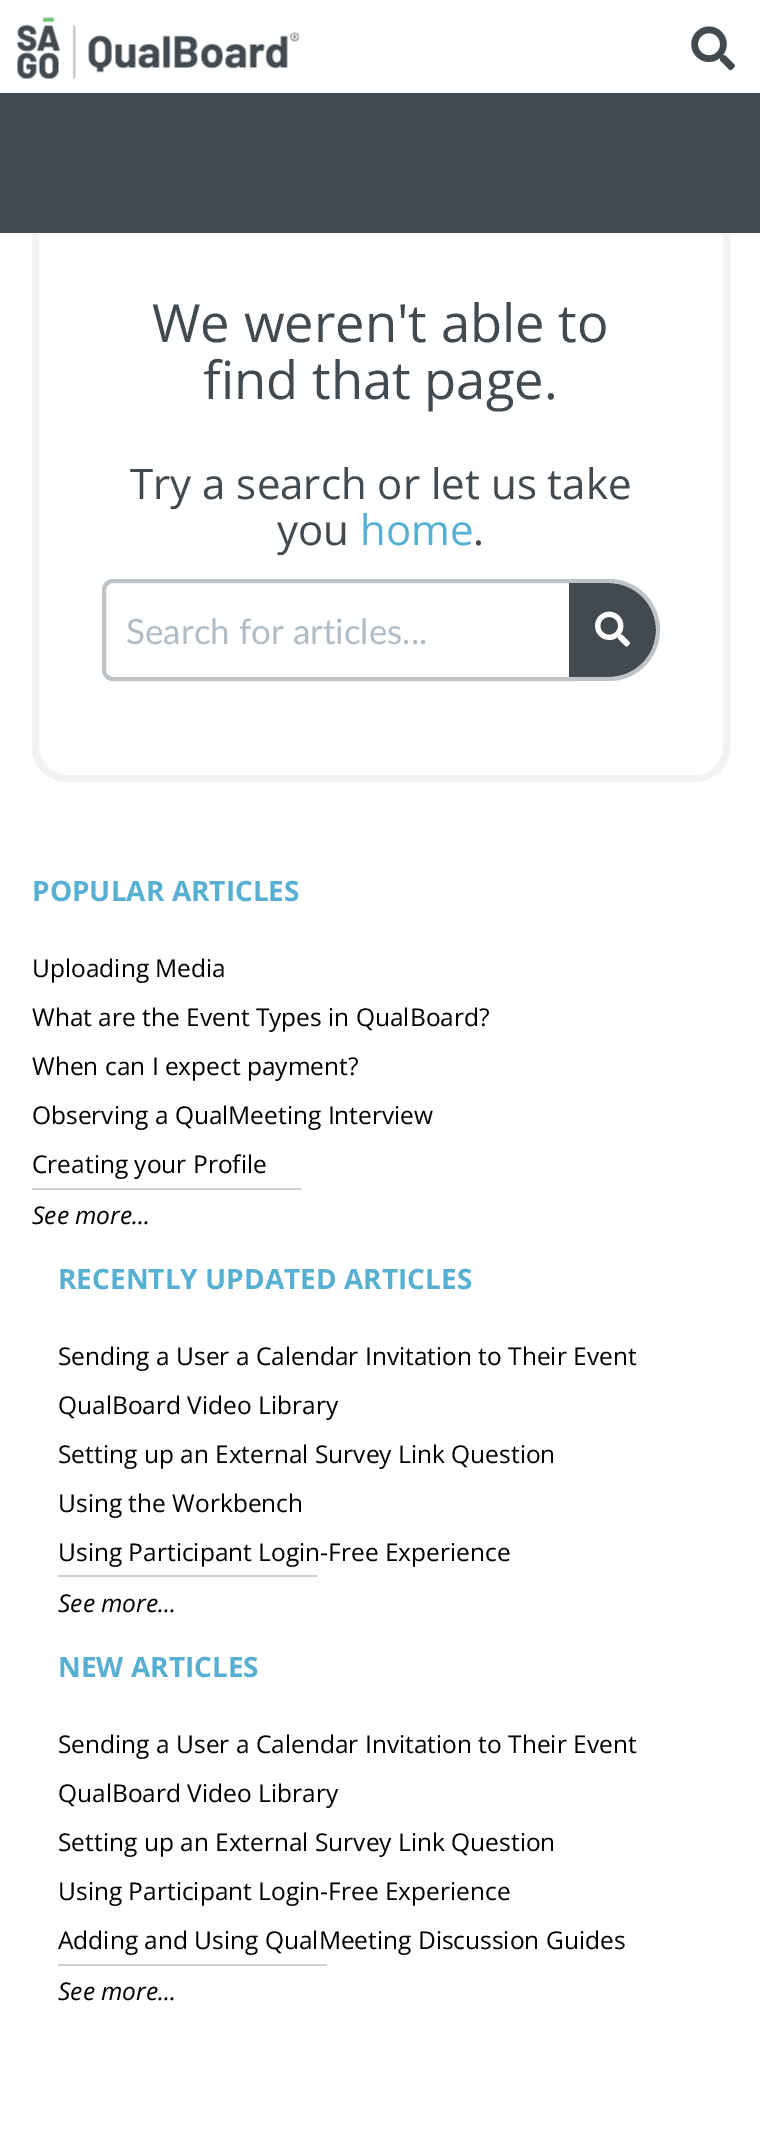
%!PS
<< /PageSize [760 2147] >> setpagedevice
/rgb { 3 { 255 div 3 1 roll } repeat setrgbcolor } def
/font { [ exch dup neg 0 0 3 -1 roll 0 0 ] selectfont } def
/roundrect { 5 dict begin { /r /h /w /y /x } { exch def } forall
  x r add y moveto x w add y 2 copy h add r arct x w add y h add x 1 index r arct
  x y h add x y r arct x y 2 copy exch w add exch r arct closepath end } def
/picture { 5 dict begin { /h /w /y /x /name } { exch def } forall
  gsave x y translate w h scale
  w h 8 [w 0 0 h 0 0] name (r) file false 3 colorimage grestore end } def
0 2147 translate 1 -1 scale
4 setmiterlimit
255 255 255 rgb
0 0 760 2147 rectfill
242 242 242 rgb
7 setlinewidth
35.5 35.5 691 743 31.5 roundrect stroke
255 255 255 rgb
32 32 698 61 rectfill
(img/1.rgb) 17 17 283 62 picture
(img/2.rgb) 691 26 44 45 picture
67 74 79 rgb
0 93 760 140 rectfill
189 195 199 rgb
4 setlinewidth
113 581 moveto 572 581 lineto 572 679 lineto 113 679 lineto 108 679 104 675 104 670 curveto 104 590 lineto 104 585 108 581 113 581 curveto closepath stroke
67 74 79 rgb
569 583 moveto 609 583 lineto 635 583 656 604 656 630 curveto 656 656 635 677 609 677 curveto 569 677 lineto closepath fill
189 195 199 rgb
569 579 moveto 609 579 lineto 637 579 660 602 660 630 curveto 660 658 637 681 609 681 curveto 569 681 lineto closepath 569 583 moveto 609 583 lineto 635 583 656 604 656 630 curveto 656 656 635 677 609 677 curveto 569 677 lineto closepath eofill
(img/3.rgb) 595 611 35 36 picture
[
  [32 1188 269 2 206 206 206]
  [58 1575 259 2 206 206 206]
  [58 1964 269 2 206 206 206]
] { aload pop rgb rectfill } forall
/OpenSans-Regular 52.5 font
67 74 79 rgb
152 342 moveto (We weren't able to) show
203 399 moveto (find that page.) show
/OpenSans-Regular 42 font
130 499 moveto (Try a search or let us take) show
277 545 moveto (you) show
87 175 209 rgb
360 545 moveto (home) show
67 74 79 rgb
473 545 moveto (.) show
/Lato-Regular 35 font
178 188 197 rgb
126 644 moveto (Search for articles...) show
/OpenSans-Bold 28 font
87 175 209 rgb
32 901 moveto (POPULAR ARTICLES) show
/OpenSans-Regular 24.5 font
0 0 0 rgb
[
  [(Uploading Media) 32 977]
  [(What are the Event Types in QualBoard?) 32 1026]
  [(When can I expect payment?) 32 1075]
  [(Observing a QualMeeting Interview) 32 1124]
  [(Creating your Profile) 32 1173]
] { aload pop moveto show } forall
/OpenSans-Italic 24.5 font
32 1224 moveto (See more...) show
/OpenSans-Bold 28 font
87 175 209 rgb
58 1289 moveto (RECENTLY UPDATED ARTICLES) show
/OpenSans-Regular 24.5 font
0 0 0 rgb
[
  [(Sending a User a Calendar Invitation to Their Event) 58 1365]
  [(QualBoard Video Library) 58 1414]
  [(Setting up an External Survey Link Question) 58 1463]
  [(Using the Workbench) 58 1512]
  [(Using Participant Login-Free Experience) 58 1561]
] { aload pop moveto show } forall
/OpenSans-Italic 24.5 font
58 1612 moveto (See more...) show
/OpenSans-Bold 28 font
87 175 209 rgb
58 1677 moveto (NEW ARTICLES) show
/OpenSans-Regular 24.5 font
0 0 0 rgb
[
  [(Sending a User a Calendar Invitation to Their Event) 58 1753]
  [(QualBoard Video Library) 58 1802]
  [(Setting up an External Survey Link Question) 58 1851]
  [(Using Participant Login-Free Experience) 58 1900]
  [(Adding and Using QualMeeting Discussion Guides) 58 1949]
] { aload pop moveto show } forall
/OpenSans-Italic 24.5 font
58 2000 moveto (See more...) show
showpage
